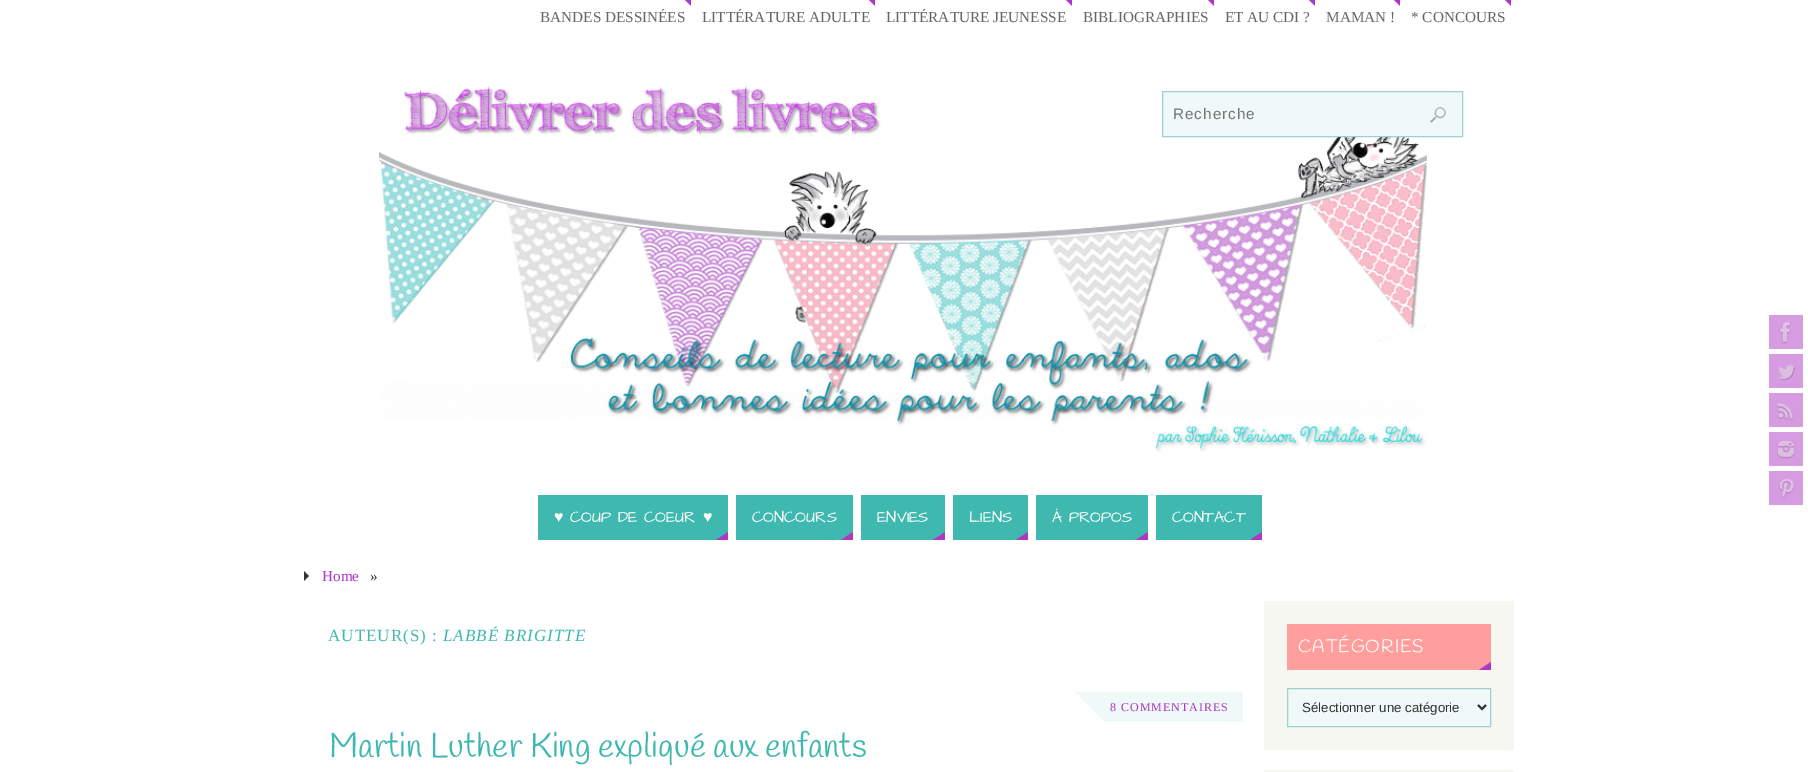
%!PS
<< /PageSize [1808 772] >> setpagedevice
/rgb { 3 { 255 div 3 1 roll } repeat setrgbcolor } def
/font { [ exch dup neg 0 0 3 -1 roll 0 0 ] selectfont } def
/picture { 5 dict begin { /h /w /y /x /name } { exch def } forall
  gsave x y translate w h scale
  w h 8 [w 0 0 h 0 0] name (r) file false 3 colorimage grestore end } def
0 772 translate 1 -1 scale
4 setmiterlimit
255 255 255 rgb
0 0 1808 772 rectfill
174 55 195 rgb
685 0 moveto 691 0 lineto 691 6 lineto closepath fill
869 0 moveto 875 0 lineto 875 6 lineto closepath fill
1066 0 moveto 1072 0 lineto 1072 6 lineto closepath fill
1208 0 moveto 1214 0 lineto 1214 6 lineto closepath fill
1309 0 moveto 1315 0 lineto 1315 6 lineto closepath fill
1394 0 moveto 1400 0 lineto 1400 6 lineto closepath fill
1505 0 moveto 1511 0 lineto 1511 6 lineto closepath fill
(img/1.rgb) 379 86 1048 366 picture
238 249 248 rgb
1162.5 91.5 moveto 1462.5 91.5 lineto 1462.5 136.5 lineto 1162.5 136.5 lineto closepath gsave fill grestore
159 208 205 rgb
stroke
(img/2.rgb) 1430 107 16 16 picture
63 184 175 rgb
538 495 190 45 rectfill
174 55 195 rgb
728 540 moveto 716 540 lineto 728 532 lineto closepath fill
63 184 175 rgb
736 495 117 45 rectfill
174 55 195 rgb
853 540 moveto 841 540 lineto 853 532 lineto closepath fill
63 184 175 rgb
861 495 84 45 rectfill
174 55 195 rgb
945 540 moveto 933 540 lineto 945 532 lineto closepath fill
63 184 175 rgb
953 495 75 45 rectfill
174 55 195 rgb
1028 540 moveto 1016 540 lineto 1028 532 lineto closepath fill
63 184 175 rgb
1036 495 112 45 rectfill
174 55 195 rgb
1148 540 moveto 1136 540 lineto 1148 532 lineto closepath fill
63 184 175 rgb
1156 495 106 45 rectfill
174 55 195 rgb
1262 540 moveto 1250 540 lineto 1262 532 lineto closepath fill
215 155 225 rgb
1769 315 34 34 rectfill
(img/3.rgb) 1779 322 12 22 picture
1769 354 34 34 rectfill
(img/4.rgb) 1778 365 18 15 picture
1769 393 34 34 rectfill
(img/5.rgb) 1776 403 18 18 picture
1769 432 34 34 rectfill
(img/6.rgb) 1777 441 18 18 picture
1769 471 34 34 rectfill
(img/7.rgb) 1779 479 16 19 picture
51 51 51 rgb
304 581 moveto 304 571 lineto 309 576 lineto closepath fill
238 249 248 rgb
1105 692 138 30 rectfill
1075 692 moveto 1105 692 lineto 1105 722 lineto closepath fill
247 247 242 rgb
1264 601 250 149 rectfill
255 158 157 rgb
1287 624 204 46 rectfill
174 55 195 rgb
1491 670 moveto 1479 670 lineto 1491 662 lineto closepath fill
238 249 248 rgb
1287.5 688.5 moveto 1490.5 688.5 lineto 1490.5 726.5 lineto 1287.5 726.5 lineto closepath gsave fill grestore
159 208 205 rgb
stroke
51 51 51 rgb
2 setlinewidth
1478 705 moveto 1482 709 lineto 1486 705 lineto stroke
247 247 242 rgb
1264 770 250 2 rectfill
/LiberationSerif-Regular 15.25 font
102 102 102 rgb
[
  [(BANDES DESSINÉES) 540 22]
  [(LITTÉRATURE ADULTE) 702 22]
  [(LITTÉRATURE JEUNESSE) 886 22]
  [(BIBLIOGRAPHIES) 1083 22]
  [(ET AU CDI ?) 1225 22]
  [(MAMAN !) 1326 22]
  [(* CONCOURS) 1411 22]
] { aload pop moveto show } forall
/LiberationSans-Regular 15.25 font
117 117 117 rgb
1173 119 moveto 1 0 (Recherche) ashow
/LiberationSerif-Regular 16 font
255 255 255 rgb
554 522 moveto (♥) show
/ArchitectsDaughter-Regular 16 font
570 522 moveto (COUP DE COEUR) show
/LiberationSerif-Regular 16 font
703 522 moveto (♥) show
/ArchitectsDaughter-Regular 16 font
[
  [(CONCOURS) 752 522]
  [(ENVIES) 877 522]
  [(LIENS) 969 522]
  [(À PROPOS) 1052 522]
  [(CONTACT) 1172 522]
] { aload pop moveto show } forall
/LiberationSerif-Regular 15.25 font
174 55 195 rgb
322 581 moveto (Home) show
51 51 51 rgb
370 581 moveto (») show
/LiberationSerif-Regular 17 font
63 184 175 rgb
328 641 moveto 1 0 (AUTEUR\(S\) :) ashow
/LiberationSerif-Italic 17 font
443 641 moveto 1 0 (LABBÉ BRIGITTE) ashow
/LiberationSerif-Regular 12 font
174 55 195 rgb
1110 711 moveto 1 0 (8 COMMENTAIRES) ashow
/Handlee-Regular 34 font
63 184 175 rgb
329 757 moveto (Martin Luther King expliqué aux enfants) show
/Handlee-Regular 18 font
255 255 255 rgb
1298 652 moveto 1 0 (CATÉGORIES) ashow
/LiberationSans-Regular 13.25 font
51 51 51 rgb
1302 712 moveto (Sélectionner une catégorie) show
showpage
